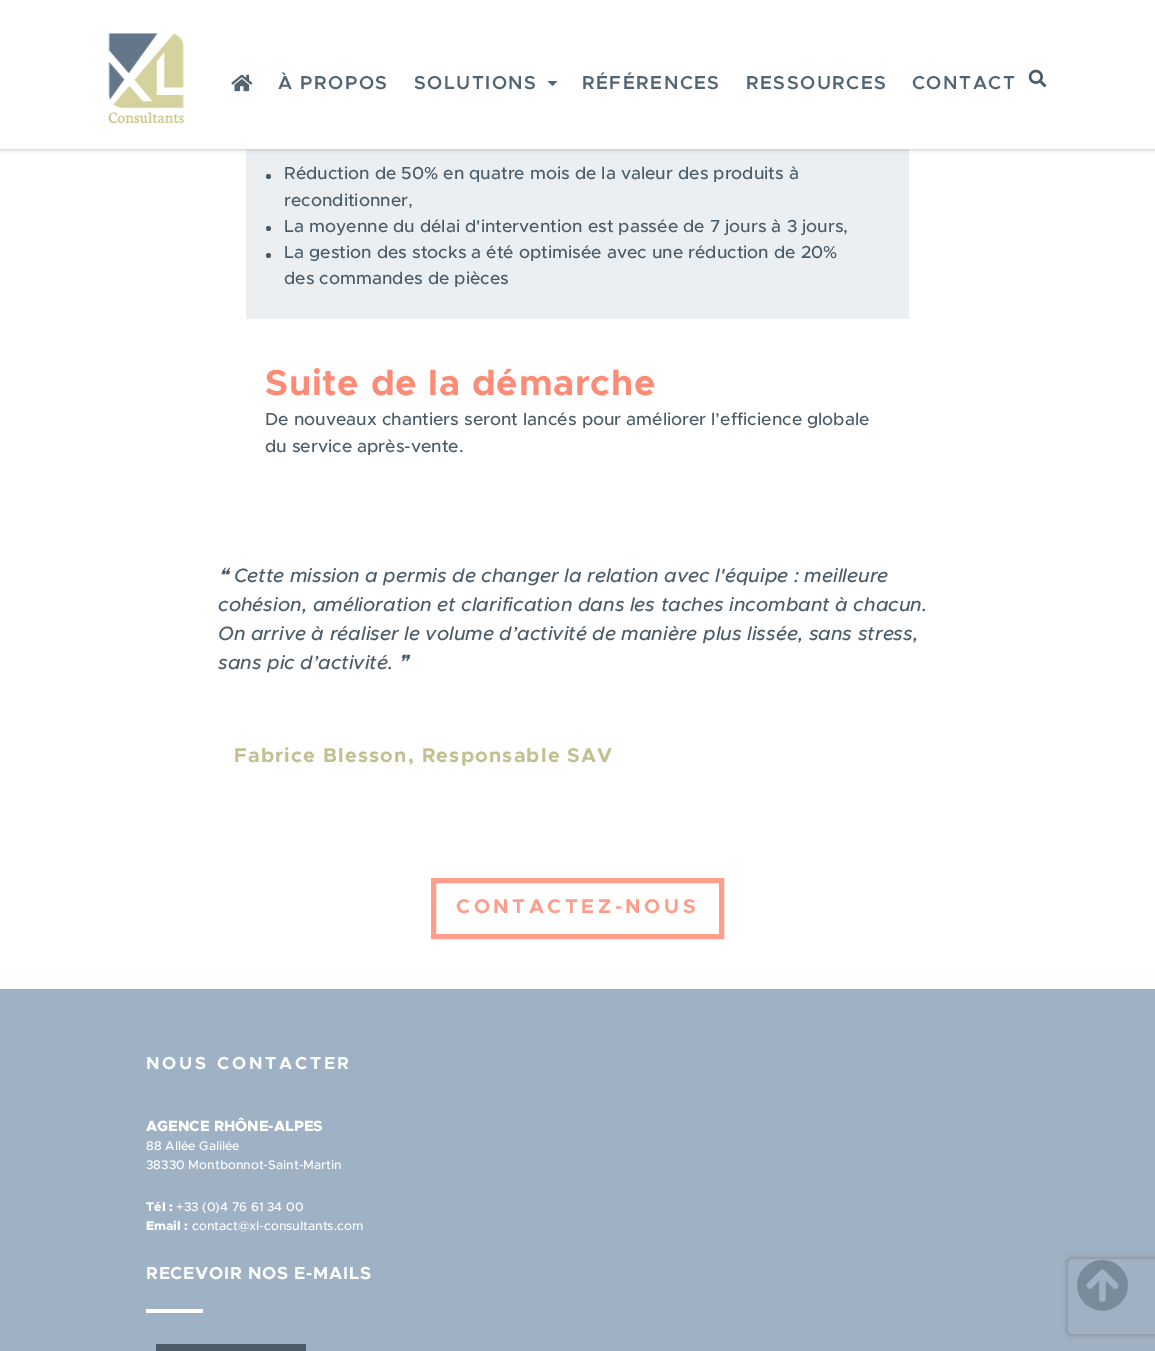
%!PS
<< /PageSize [1155 1351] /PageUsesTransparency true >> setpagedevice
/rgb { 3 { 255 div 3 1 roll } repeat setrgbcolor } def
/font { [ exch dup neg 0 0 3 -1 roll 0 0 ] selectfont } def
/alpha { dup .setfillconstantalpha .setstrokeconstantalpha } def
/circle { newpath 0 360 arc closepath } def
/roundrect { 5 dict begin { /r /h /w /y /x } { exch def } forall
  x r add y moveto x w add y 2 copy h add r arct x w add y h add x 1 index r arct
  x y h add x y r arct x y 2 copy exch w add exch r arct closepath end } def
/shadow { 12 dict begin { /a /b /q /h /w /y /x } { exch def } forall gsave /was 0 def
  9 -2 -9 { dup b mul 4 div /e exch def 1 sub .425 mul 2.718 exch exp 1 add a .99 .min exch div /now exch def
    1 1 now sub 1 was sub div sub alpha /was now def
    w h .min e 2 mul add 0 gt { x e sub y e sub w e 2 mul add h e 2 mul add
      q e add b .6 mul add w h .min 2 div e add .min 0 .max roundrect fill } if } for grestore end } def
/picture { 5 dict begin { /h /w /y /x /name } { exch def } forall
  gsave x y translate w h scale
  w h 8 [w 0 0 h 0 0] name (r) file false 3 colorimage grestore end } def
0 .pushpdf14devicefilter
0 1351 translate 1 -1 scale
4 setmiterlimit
255 255 255 rgb
0 0 1155 1351 rectfill
236 239 241 rgb
246 149 663 170 rectfill
0 0 0 rgb
0 0 1155 149 0 2.5 0.3 shadow
255 255 255 rgb
0 0 1155 149 rectfill
(img/1.rgb) 108 33 76 90 picture
(img/2.rgb) 231 74 22 18 picture
83 101 115 rgb
547.5 81 moveto 557.5 81 lineto 552.5 86 lineto closepath fill
(img/3.rgb) 1028 69 19 19 picture
75 91 103 rgb
268.5 176.5 2.5 circle fill
268.5 228.5 2.5 circle fill
268.5 255.5 2.5 circle fill
254 157 138 rgb
5 setlinewidth
433.5 880.5 288 56 rectstroke
[
  [0 989 1155 362 159 178 197]
  [146 1309 57 4 255 255 255]
  [156 1344 150 7 75 91 103]
] { aload pop rgb rectfill } forall
(img/4.rgb) 1077 1259 51 52 picture
gsave
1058 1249 moveto 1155 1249 lineto 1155 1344 lineto 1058 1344 lineto closepath 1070.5 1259 moveto 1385.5 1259 lineto 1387 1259 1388 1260 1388 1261.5 curveto 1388 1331.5 lineto 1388 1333 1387 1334 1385.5 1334 curveto 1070.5 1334 lineto 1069 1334 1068 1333 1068 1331.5 curveto 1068 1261.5 lineto 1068 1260 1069 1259 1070.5 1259 curveto closepath eoclip newpath
128 128 128 rgb
1068 1259 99 75 2.5 3 1 shadow
grestore
/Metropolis-SemiBold 18.75 font
83 101 115 rgb
278 89 moveto 1.5 0 (À PROPOS) ashow
414 89 moveto 1.5 0 (SOLUTIONS) ashow
582 89 moveto 1.5 0 (RÉFÉRENCES) ashow
746 89 moveto 1.5 0 (RESSOURCES) ashow
912 89 moveto 1.5 0 (CONTACT) ashow
/Metropolis-Medium 17.5 font
75 91 103 rgb
[
  [(Réduction de 50% en quatre mois de la valeur des produits à) 284 179]
  [(reconditionner,) 284 206]
  [(La moyenne du délai d'intervention est passée de 7 jours à 3 jours,) 284 232]
  [(La gestion des stocks a été optimisée avec une réduction de 20%) 284 258]
  [(des commandes de pièces) 284 284]
] { aload pop moveto show } forall
/Metropolis-Bold 36.25 font
254 139 117 rgb
265 395 moveto 0.75 0 (Suite de la démarche) ashow
/Metropolis-Medium 17.5 font
75 91 103 rgb
265 425 moveto (De nouveaux chantiers seront lancés pour améliorer l’efficience globale) show
265 452 moveto (du service après-vente.) show
/DejaVuSans-Italic 19.4 font
218 582 moveto (❝) show
/Metropolis-MediumItalic 19.4 font
[
  [(Cette mission a permis de changer la relation avec l'équipe : meilleure) 234 582]
  [(cohésion, amélioration et clarification dans les taches incombant à chacun.) 218 611]
  [(On arrive à réaliser le volume d’activité de manière plus lissée, sans stress,) 218 640]
  [(sans pic d’activité.) 218 669]
] { aload pop moveto show } forall
/DejaVuSans-Italic 19.4 font
398 669 moveto (❞) show
/Metropolis-Bold 20 font
194 192 144 rgb
234 762 moveto 1.2 0 (Fabrice Blesson, Responsable SAV) ashow
254 157 138 rgb
456 913 moveto 3.6 0 (CONTACTEZ-NOUS) ashow
/Metropolis-Bold 17.5 font
255 255 255 rgb
146 1069 moveto 2.75 0 (NOUS CONTACTER) ashow
/Metropolis-ExtraBold 14.9 font
146 1131 moveto (AGENCE RHÔNE-ALPES) show
/Metropolis-Medium 12.6 font
146 1150 moveto (88 Allée Galilée) show
146 1169 moveto (38330 Montbonnot-Saint-Martin) show
/Metropolis-ExtraBold 12.6 font
146 1211 moveto (Tél :) show
/Metropolis-Medium 12.6 font
176 1211 moveto (+33 \(0\)4 76 61 34 00) show
/Metropolis-ExtraBold 12.6 font
146 1230 moveto (Email :) show
/Metropolis-Medium 12.6 font
192 1230 moveto (contact@xl-consultants.com) show
/Metropolis-Bold 17.5 font
146 1279 moveto 0.7 0 (RECEVOIR NOS E-MAILS) ashow
.poppdf14devicefilter showpage
